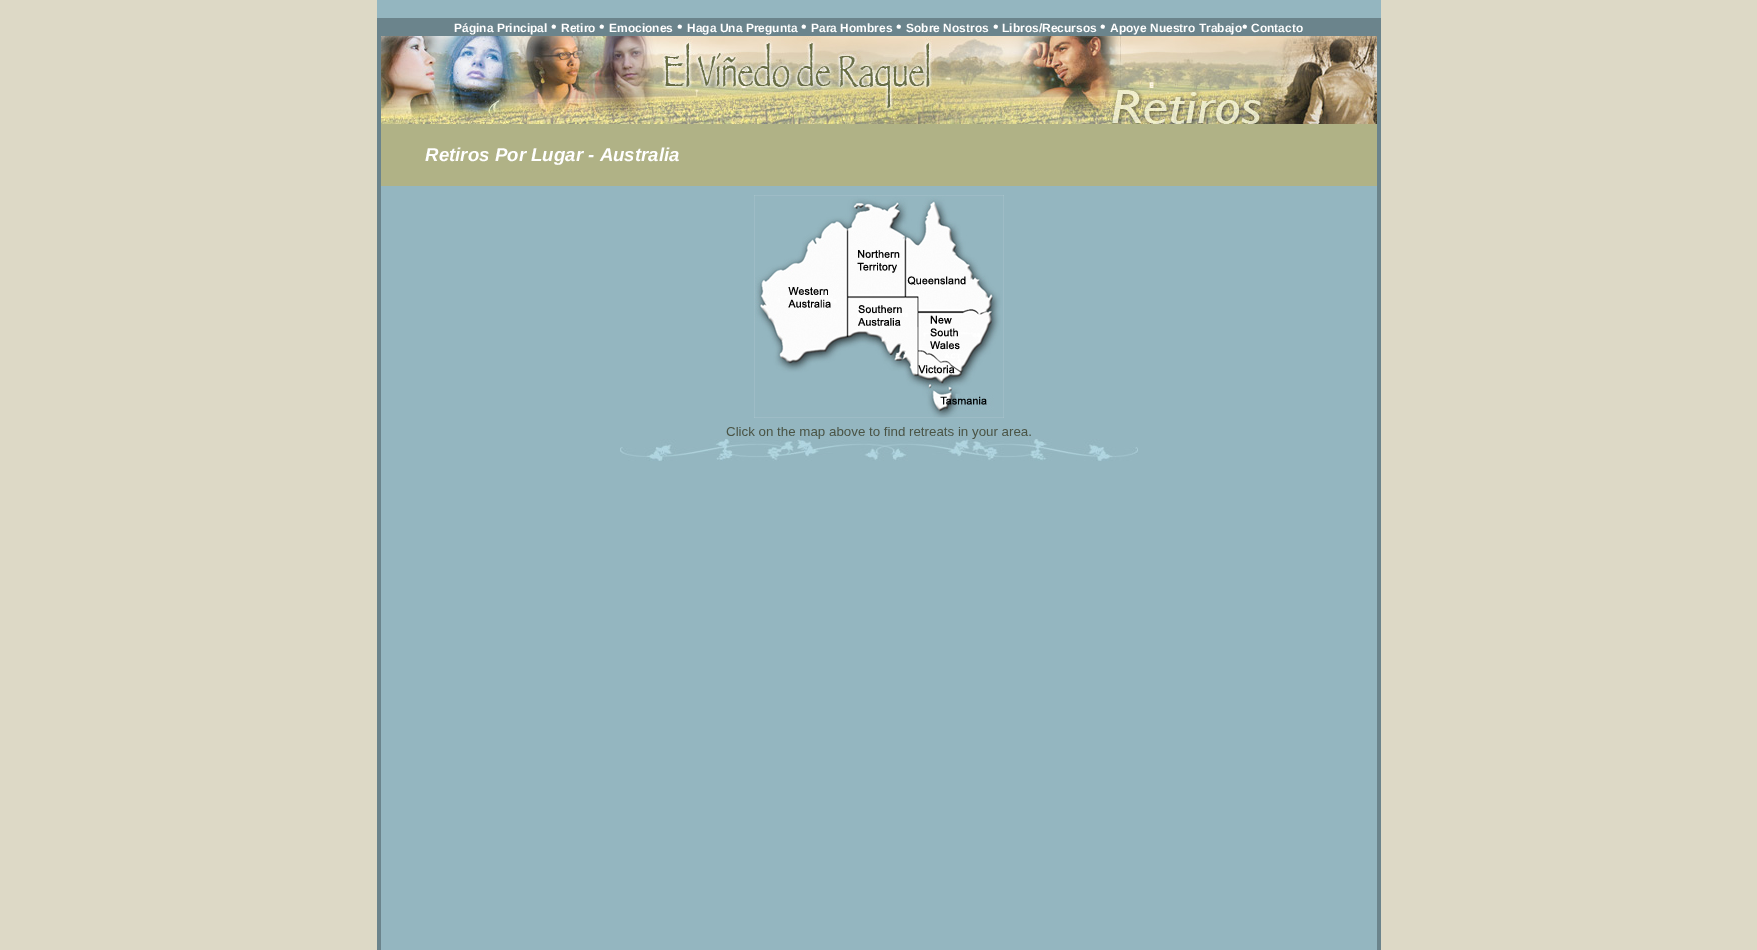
%!PS
<< /PageSize [1757 950] >> setpagedevice
/rgb { 3 { 255 div 3 1 roll } repeat setrgbcolor } def
/font { [ exch dup neg 0 0 3 -1 roll 0 0 ] selectfont } def
/picture { 5 dict begin { /h /w /y /x /name } { exch def } forall
  gsave x y translate w h scale
  w h 8 [w 0 0 h 0 0] name (r) file false 3 colorimage grestore end } def
0 950 translate 1 -1 scale
4 setmiterlimit
221 217 198 rgb
0 0 1757 950 rectfill
[
  [377 0 1004 18 148 182 192]
  [377 18 1004 18 107 132 140]
  [377 36 4 914 107 132 140]
] { aload pop rgb rectfill } forall
(img/1.rgb) 381 36 996 88 picture
[
  [1377 36 4 914 107 132 140]
  [381 186 996 764 148 182 192]
  [381 124 996 62 176 178 134]
] { aload pop rgb rectfill } forall
(img/2.rgb) 620 195 518 266 picture
/LiberationSans-Bold 12 font
255 255 255 rgb
454 32 moveto (Página Principal) show
/LiberationSerif-Bold 16 font
551 32 moveto (•) show
/LiberationSans-Bold 12 font
561 32 moveto (Retiro) show
/LiberationSerif-Bold 16 font
599 32 moveto (•) show
/LiberationSans-Bold 12 font
609 32 moveto (Emociones) show
/LiberationSerif-Bold 16 font
677 32 moveto (•) show
/LiberationSans-Bold 12 font
687 32 moveto (Haga Una Pregunta) show
/LiberationSerif-Bold 16 font
801 32 moveto (•) show
/LiberationSans-Bold 12 font
811 32 moveto (Para Hombres) show
/LiberationSerif-Bold 16 font
896 32 moveto (•) show
/LiberationSans-Bold 12 font
906 32 moveto (Sobre Nostros) show
/LiberationSerif-Bold 16 font
993 32 moveto (•) show
/LiberationSans-Bold 12 font
1002 32 moveto (Libros/Recursos) show
/LiberationSerif-Bold 16 font
1100 32 moveto (•) show
/LiberationSans-Bold 12 font
1110 32 moveto (Apoye Nuestro Trabajo) show
/LiberationSerif-Bold 16 font
1242 32 moveto (•) show
/LiberationSans-Bold 12 font
1251 32 moveto (Contacto) show
/LiberationSans-BoldItalic 18.7 font
425 161 moveto (Retiros Por Lugar - Australia) show
showpage
